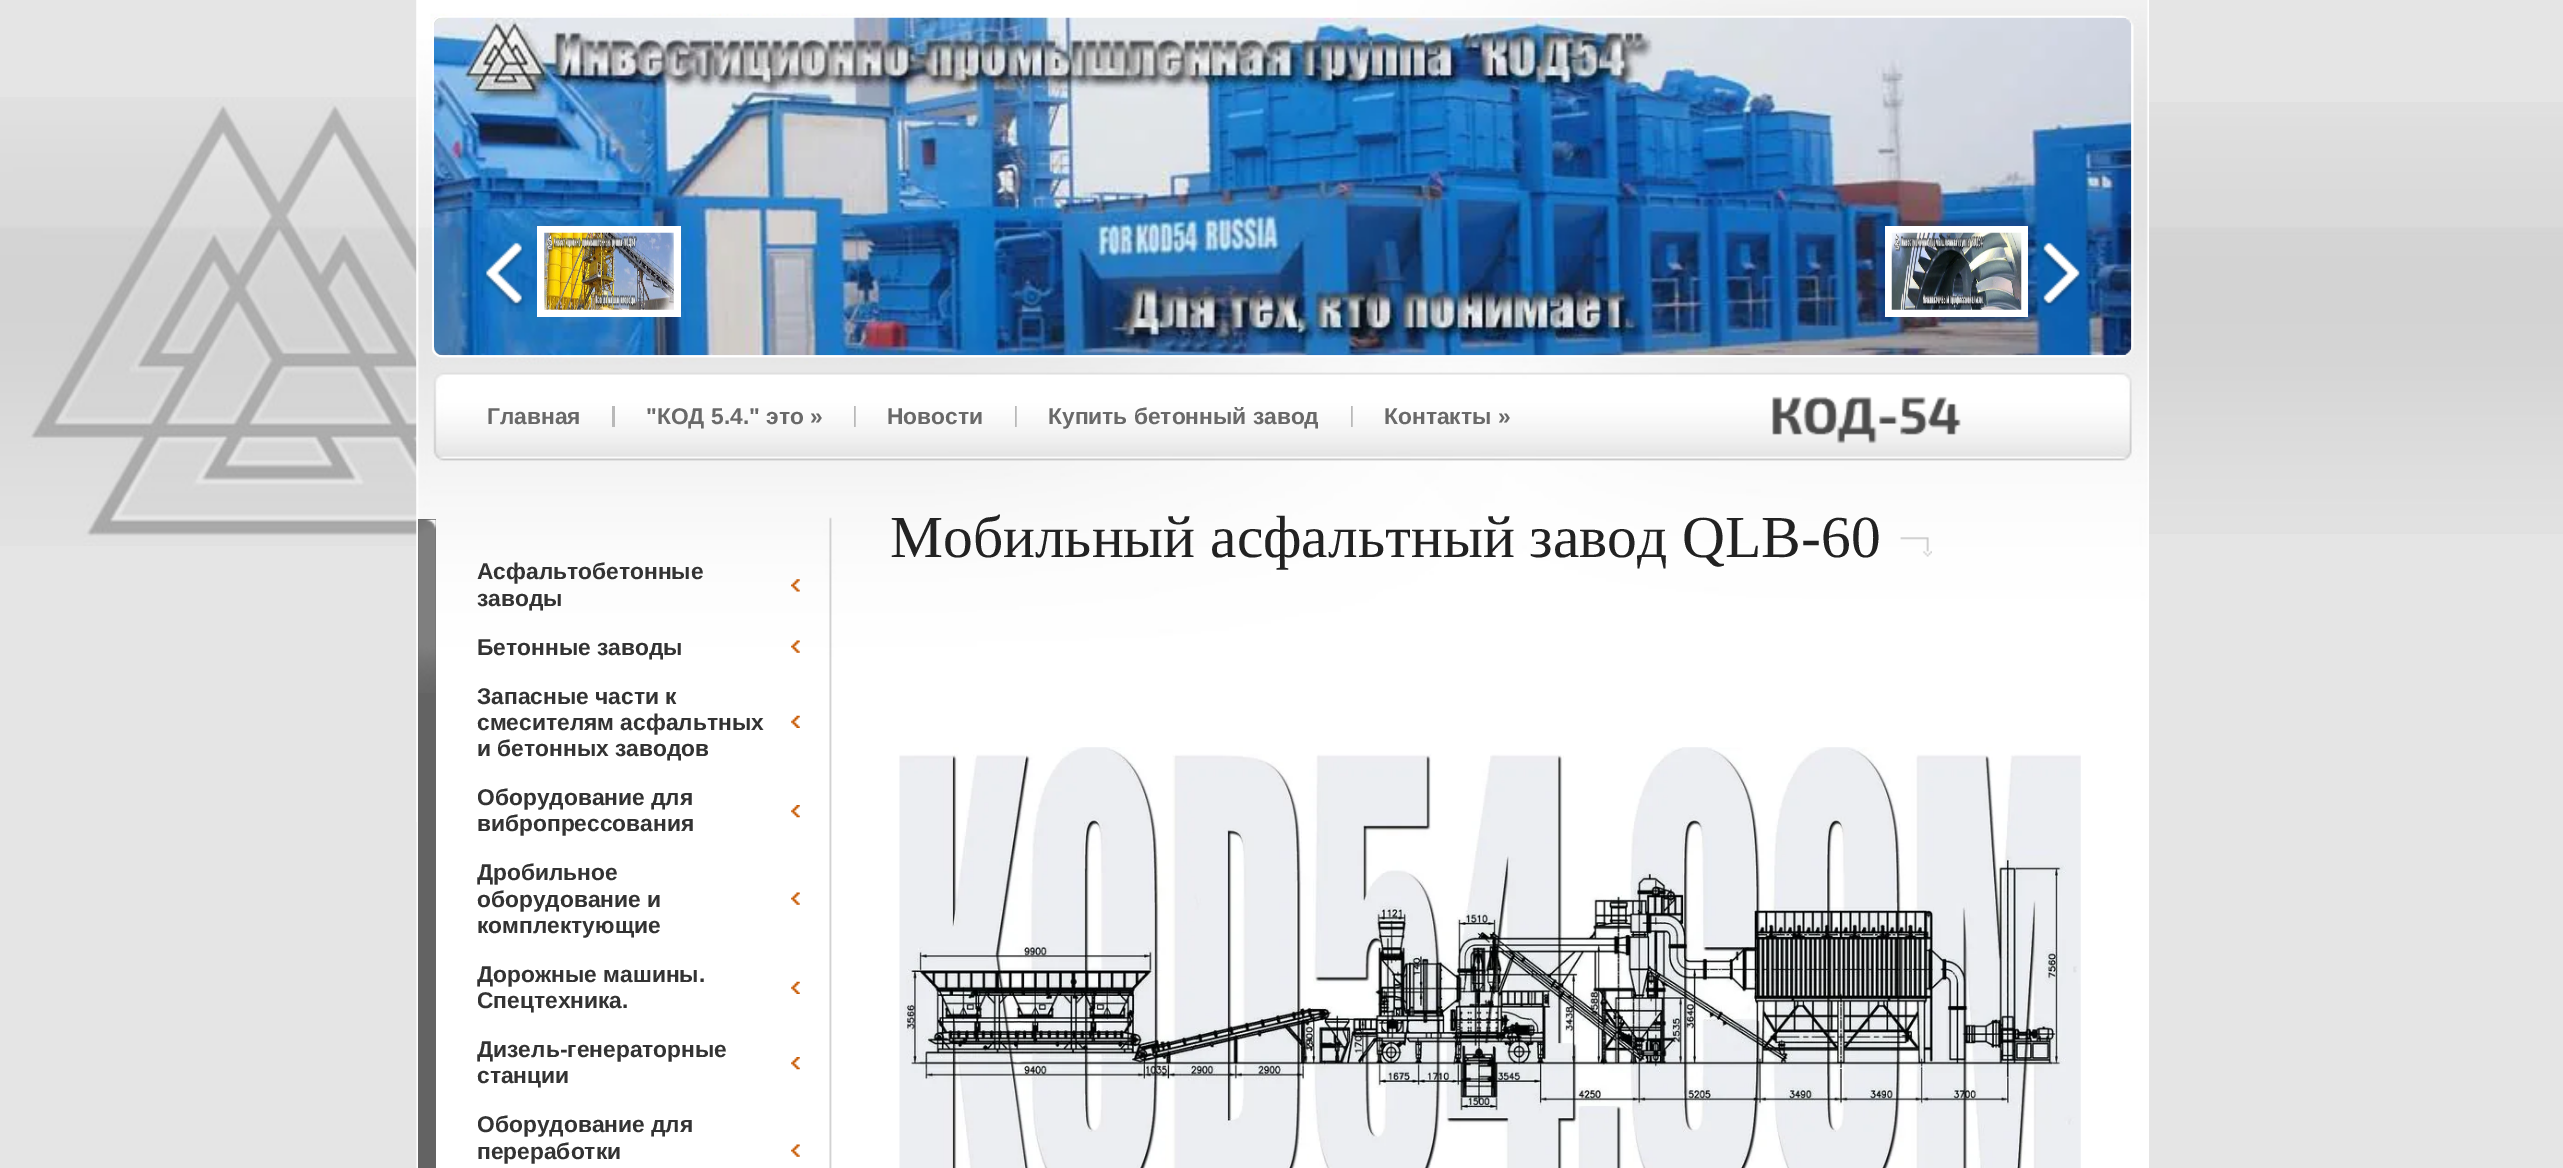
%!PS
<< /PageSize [2563 1168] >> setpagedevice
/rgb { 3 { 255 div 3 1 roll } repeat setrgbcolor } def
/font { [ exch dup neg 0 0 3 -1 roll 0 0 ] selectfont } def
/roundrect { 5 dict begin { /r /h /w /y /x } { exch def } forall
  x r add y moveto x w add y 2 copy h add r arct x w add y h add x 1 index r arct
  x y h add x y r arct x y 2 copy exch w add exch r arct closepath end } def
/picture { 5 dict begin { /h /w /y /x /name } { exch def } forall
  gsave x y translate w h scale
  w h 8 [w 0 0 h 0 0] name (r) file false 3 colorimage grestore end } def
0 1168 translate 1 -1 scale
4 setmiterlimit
229 229 229 rgb
0 0 2563 1168 rectfill
(img/1.rgb) 2149 102 414 432 picture
(img/2.rgb) 0 97 417 449 picture
(img/3.rgb) 416 0 1733 1168 picture
(img/4.rgb) 416 0 1732 822 picture
211 211 211 rgb
433 17 1699 339 8 roundrect gsave fill grestore
255 255 255 rgb
2 setlinewidth
stroke
(img/5.rgb) 434 17 1698 339 picture
(img/6.rgb) 483 242 42 65 picture
537 226 144 91 rectfill
(img/7.rgb) 544 232 130 78 picture
1885 226 143 91 rectfill
(img/8.rgb) 1891 232 131 78 picture
(img/9.rgb) 2041 242 41 65 picture
(img/10.rgb) 2116 16 18 341 picture
185 185 185 rgb
612 406 3 21 rectfill
(img/11.rgb) 854 406 2 21 picture
(img/11.rgb) 1015 406 2 21 picture
(img/11.rgb) 1351 406 2 21 picture
(img/12.rgb) 1772 396 189 48 picture
(img/13.rgb) 1900 537 32 20 picture
(img/14.rgb) 899 747 1182 421 picture
99 99 99 rgb
418 519 18 649 rectfill
(img/15.rgb) 418 519 18 174 picture
(img/16.rgb) 791 579 9 13 picture
(img/17.rgb) 791 640 9 13 picture
(img/18.rgb) 791 715 9 13 picture
(img/19.rgb) 791 805 9 13 picture
(img/20.rgb) 791 892 9 13 picture
(img/18.rgb) 791 981 9 13 picture
(img/19.rgb) 791 1057 9 13 picture
(img/20.rgb) 791 1144 9 13 picture
/LiberationSans-Bold 22.75 font
105 105 105 rgb
[
  [(Главная) 487 424]
  [("КОД 5.4." это ») 646 424]
  [(Новости) 887 424]
  [(Купить бетонный завод) 1048 424]
  [(Контакты ») 1384 424]
] { aload pop moveto show } forall
/LiberationSerif-Regular 59.5 font
34 34 34 rgb
890 557 moveto (Мобильный асфальтный завод QLB-60) show
/LiberationSans-Bold 22.75 font
51 51 51 rgb
[
  [(Асфальтобетонные) 477 579]
  [(заводы) 477 606]
  [(Бетонные заводы) 477 655]
  [(Запасные части к) 477 704]
  [(смесителям асфальтных) 477 730]
  [(и бетонных заводов) 477 756]
  [(Оборудование для) 477 805]
  [(вибропрессования) 477 831]
  [(Дробильное) 477 880]
  [(оборудование и) 477 907]
  [(комплектующие) 477 933]
  [(Дорожные машины.) 477 982]
  [(Спецтехника.) 477 1008]
  [(Дизель-генераторные) 477 1057]
  [(станции) 477 1083]
  [(Оборудование для) 477 1132]
  [(переработки) 477 1159]
] { aload pop moveto show } forall
showpage
